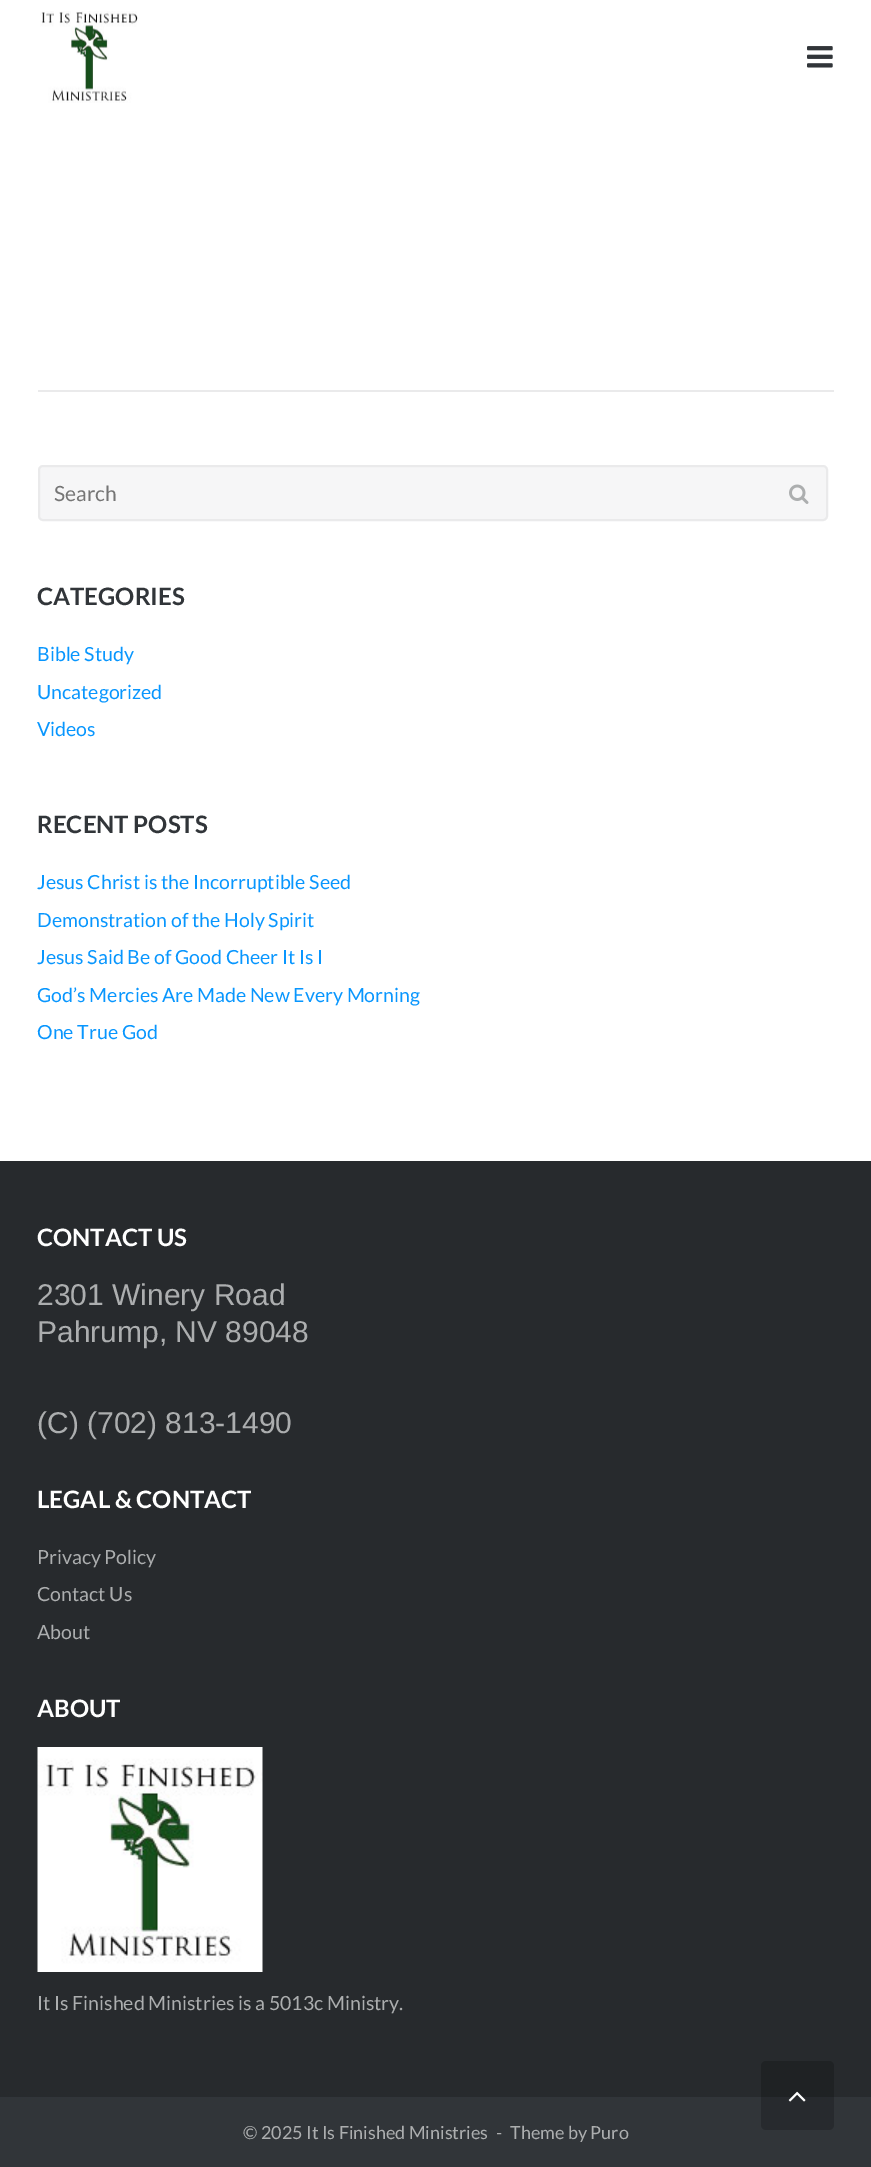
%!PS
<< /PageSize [871 2167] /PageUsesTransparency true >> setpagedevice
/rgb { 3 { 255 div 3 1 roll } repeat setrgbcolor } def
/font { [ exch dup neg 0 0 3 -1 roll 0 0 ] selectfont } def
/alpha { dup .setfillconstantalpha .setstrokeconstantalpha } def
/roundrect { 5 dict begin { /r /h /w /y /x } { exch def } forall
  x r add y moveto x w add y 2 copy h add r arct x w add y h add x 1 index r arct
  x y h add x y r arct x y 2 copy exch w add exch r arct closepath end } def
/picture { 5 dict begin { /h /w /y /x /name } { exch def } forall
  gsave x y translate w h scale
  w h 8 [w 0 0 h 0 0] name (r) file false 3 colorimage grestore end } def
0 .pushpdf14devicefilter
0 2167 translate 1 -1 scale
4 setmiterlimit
255 255 255 rgb
0 0 871 2167 rectfill
(img/1.rgb) 40 11 98 92 picture
(img/2.rgb) 807 46 26 22 picture
234 234 235 rgb
38 390 796 2 rectfill
246 246 247 rgb
39 466 788 54 4 roundrect gsave fill grestore
234 234 235 rgb
2 setlinewidth
stroke
(img/3.rgb) 789 484 20 20 picture
39 42 45 rgb
0 1161 871 936 rectfill
(img/4.rgb) 37 1747 226 225 picture
49 53 57 rgb
0 2097 871 70 rectfill
0.2 alpha
0 0 0 rgb
761 2061 73 69 5 roundrect fill
1 alpha
(img/5.rgb) 788 2091 18 11 picture
/Lato-Regular 21 font
117 117 117 rgb
54 501 moveto (Search) show
/Lato-Bold 24 font
49 53 57 rgb
37 605 moveto (CATEGORIES) show
/Lato-Regular 19.5 font
8 150 254 rgb
[
  [(Bible Study) 37 661]
  [(Uncategorized) 37 699]
  [(Videos) 37 736]
] { aload pop moveto show } forall
/Lato-Bold 24 font
49 53 57 rgb
37 833 moveto (RECENT POSTS) show
/Lato-Regular 19.5 font
8 150 254 rgb
[
  [(Jesus Christ is the Incorruptible Seed) 37 889]
  [(Demonstration of the Holy Spirit) 37 927]
  [(Jesus Said Be of Good Cheer It Is I) 37 964]
  [(God’s Mercies Are Made New Every Morning) 37 1002]
  [(One True God) 37 1039]
] { aload pop moveto show } forall
/Lato-Bold 24 font
255 255 255 rgb
37 1246 moveto (CONTACT US) show
/LiberationSans-Regular 30 font
172 174 175 rgb
[
  [(2301 Winery Road) 37 1305]
  [(Pahrump, NV 89048) 37 1342]
  [(\(C\) \(702\) 813-1490) 37 1433]
] { aload pop moveto show } forall
/Lato-Bold 24 font
255 255 255 rgb
37 1508 moveto (LEGAL & CONTACT) show
/Lato-Regular 19.5 font
172 174 175 rgb
[
  [(Privacy Policy) 37 1564]
  [(Contact Us) 37 1601]
  [(About) 37 1639]
] { aload pop moveto show } forall
/Lato-Bold 24 font
255 255 255 rgb
37 1717 moveto (ABOUT) show
/Lato-Regular 19.5 font
172 174 175 rgb
37 2010 moveto (It Is Finished Ministries is a 5013c Ministry.) show
/Lato-Regular 18 font
[
  [(© 2025 It Is Finished Ministries) 243 2139]
  [(-) 496 2139]
  [(Theme by Puro) 510 2139]
] { aload pop moveto show } forall
.poppdf14devicefilter showpage
